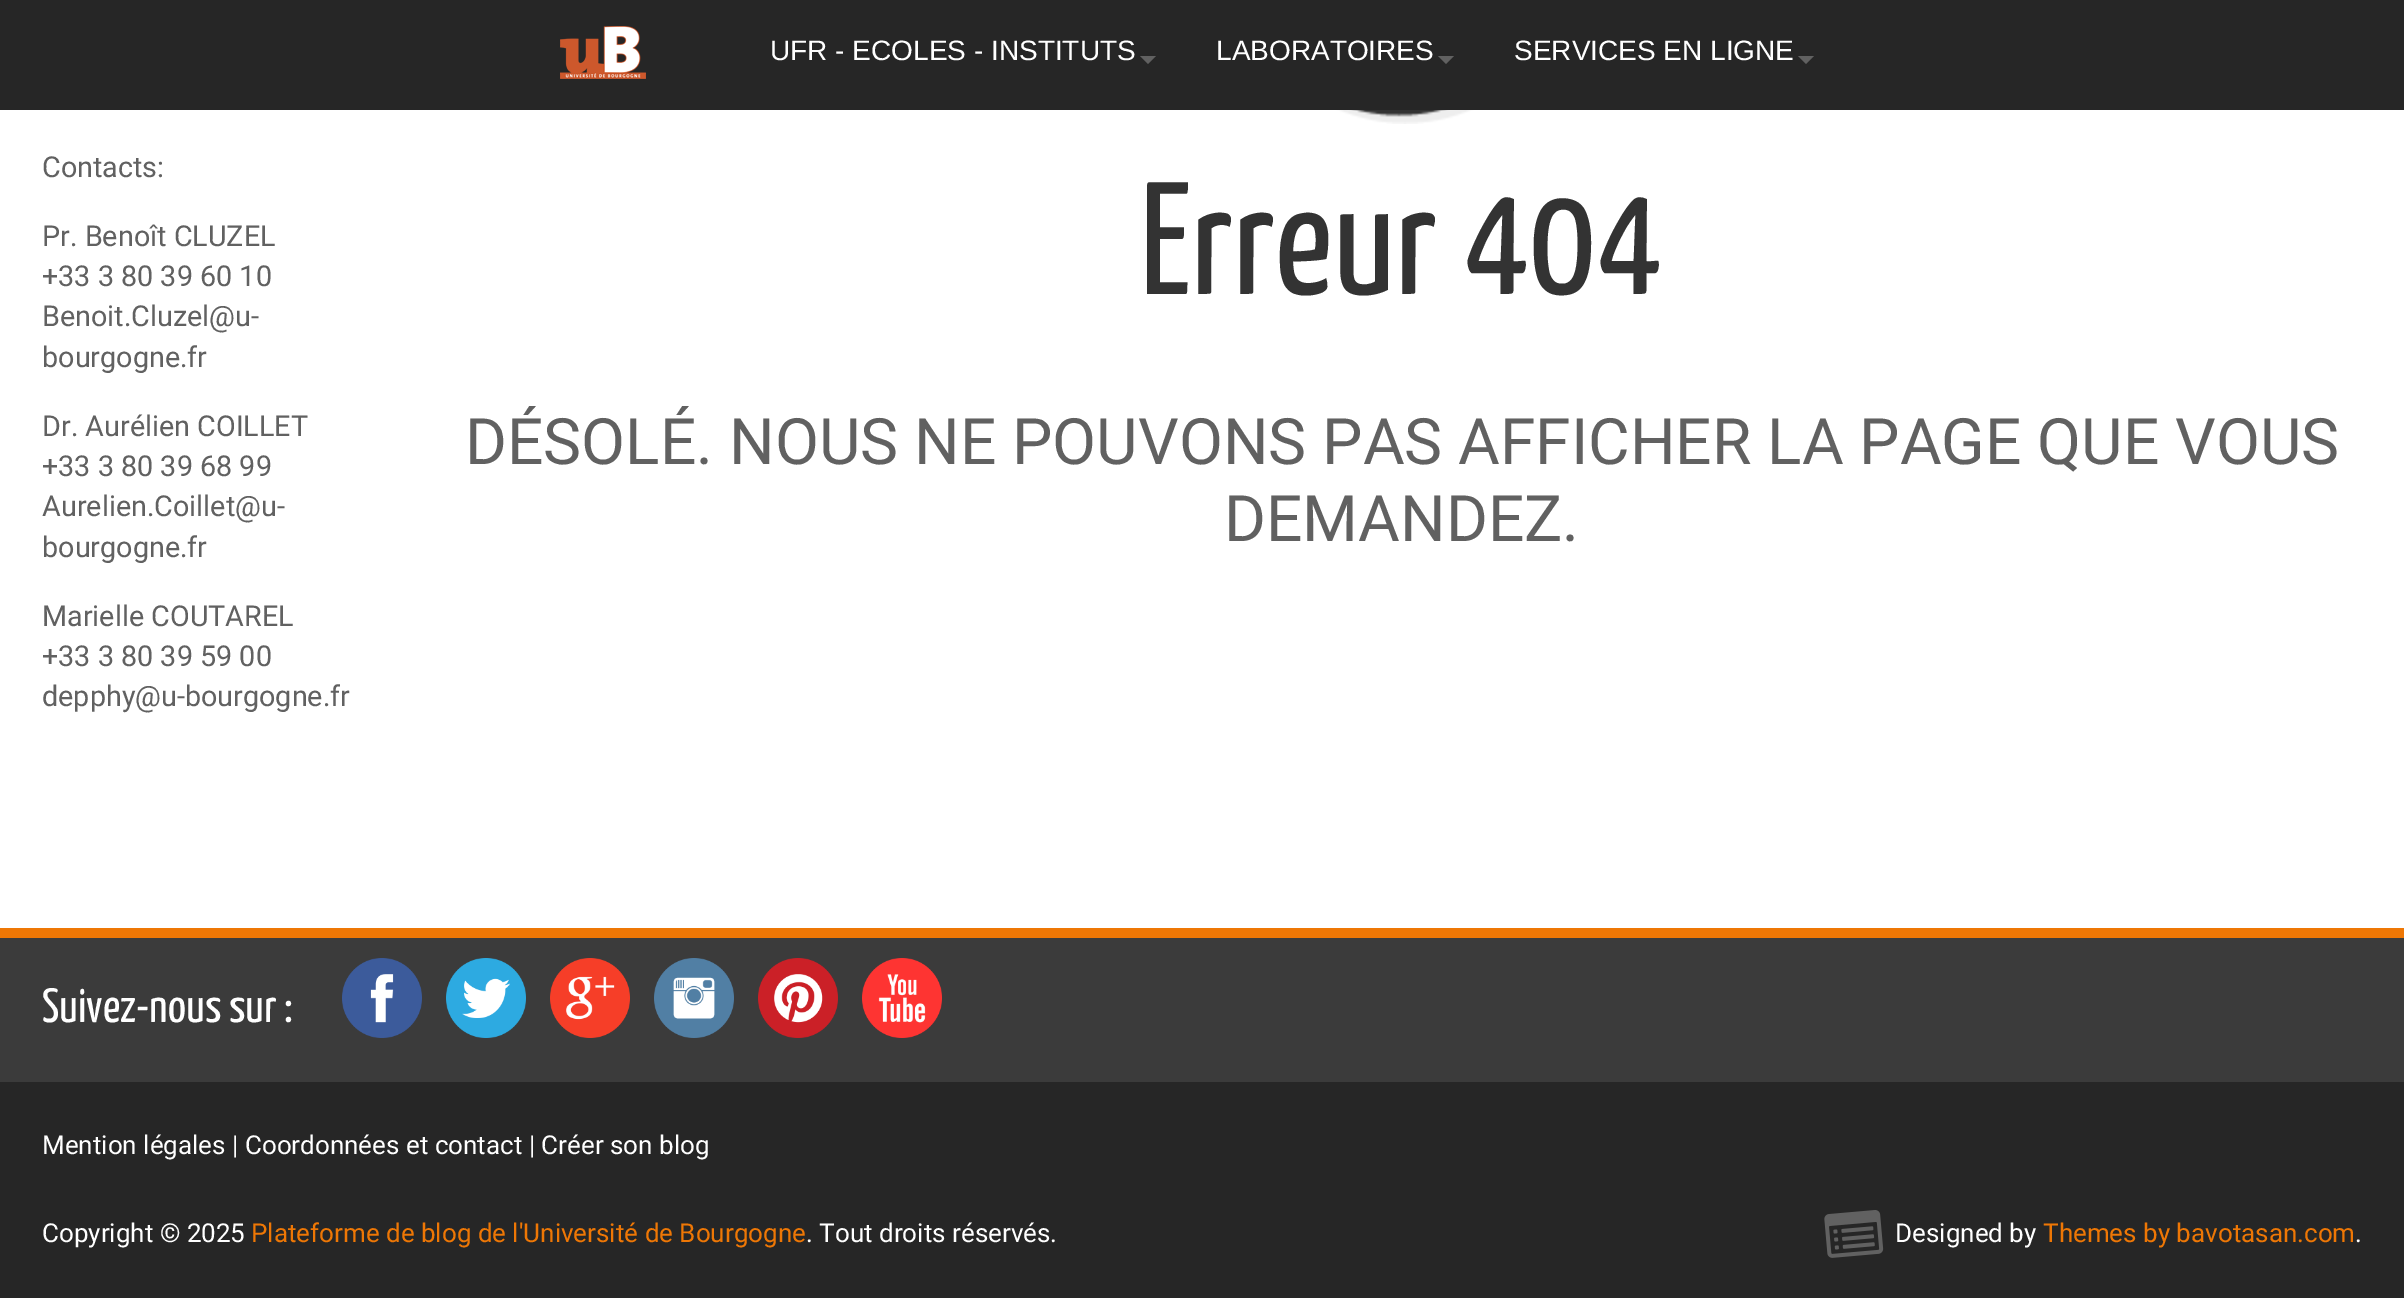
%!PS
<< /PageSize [2404 1298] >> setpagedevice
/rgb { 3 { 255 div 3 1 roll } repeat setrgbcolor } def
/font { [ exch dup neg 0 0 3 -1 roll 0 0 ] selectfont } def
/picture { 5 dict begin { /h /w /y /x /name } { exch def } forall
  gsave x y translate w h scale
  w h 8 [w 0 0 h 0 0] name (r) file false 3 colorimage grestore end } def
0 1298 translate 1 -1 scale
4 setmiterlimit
255 255 255 rgb
0 0 2404 1298 rectfill
38 38 38 rgb
0 0 2404 110 rectfill
(img/1.rgb) 560 26 86 53 picture
97 97 97 rgb
1140 56 moveto 1156 56 lineto 1148 64 lineto closepath fill
1438 56 moveto 1454 56 lineto 1446 64 lineto closepath fill
1798 56 moveto 1814 56 lineto 1806 64 lineto closepath fill
(img/2.rgb) 1335 110 140 14 picture
59 59 59 rgb
0 938 2404 144 rectfill
238 119 5 rgb
0 928 2404 10 rectfill
(img/3.rgb) 342 958 80 80 picture
(img/4.rgb) 446 958 80 80 picture
(img/5.rgb) 550 958 80 80 picture
(img/6.rgb) 654 958 80 80 picture
(img/7.rgb) 758 958 80 80 picture
(img/8.rgb) 862 958 80 80 picture
38 38 38 rgb
0 1082 2404 216 rectfill
(img/9.rgb) 1824 1210 60 48 picture
/LiberationSans-Regular 28 font
255 255 255 rgb
[
  [(UFR - ECOLES - INSTITUTS) 770 60]
  [(LABORATOIRES) 1216 60]
  [(SERVICES EN LIGNE) 1514 60]
] { aload pop moveto show } forall
/Roboto-Regular 28.75 font
97 97 97 rgb
[
  [(Contacts:) 42 177]
  [(Pr. Benoît CLUZEL) 42 246]
  [(+33 3 80 39 60 10) 42 286]
  [(Benoit.Cluzel@u-) 42 326]
  [(bourgogne.fr) 42 367]
  [(Dr. Aurélien COILLET) 42 436]
  [(+33 3 80 39 68 99) 42 476]
  [(Aurelien.Coillet@u-) 42 516]
  [(bourgogne.fr) 42 557]
  [(Marielle COUTAREL) 42 626]
  [(+33 3 80 39 59 00) 42 666]
  [(depphy@u-bourgogne.fr) 42 706]
] { aload pop moveto show } forall
/YanoneKaffeesatz-Regular 160 font
51 51 51 rgb
1140 294 moveto (Erreur 404) show
/Roboto-Regular 64 font
97 97 97 rgb
465 464 moveto (DÉSOLÉ. NOUS NE POUVONS PAS AFFICHER LA PAGE QUE VOUS) show
1224 541 moveto (DEMANDEZ.) show
/YanoneKaffeesatz-Regular 48 font
255 255 255 rgb
42 1022 moveto (Suivez-nous sur :) show
/Roboto-Regular 26 font
42 1154 moveto (Mention légales | Coordonnées et contact | Créer son blog) show
42 1242 moveto (Copyright © 2025) show
238 119 5 rgb
251 1242 moveto (Plateforme de blog de l'Université de Bourgogne) show
255 255 255 rgb
806 1242 moveto (. Tout droits réservés.) show
1895 1242 moveto (Designed by) show
238 119 5 rgb
2043 1242 moveto (Themes by bavotasan.com) show
255 255 255 rgb
2355 1242 moveto (.) show
showpage
